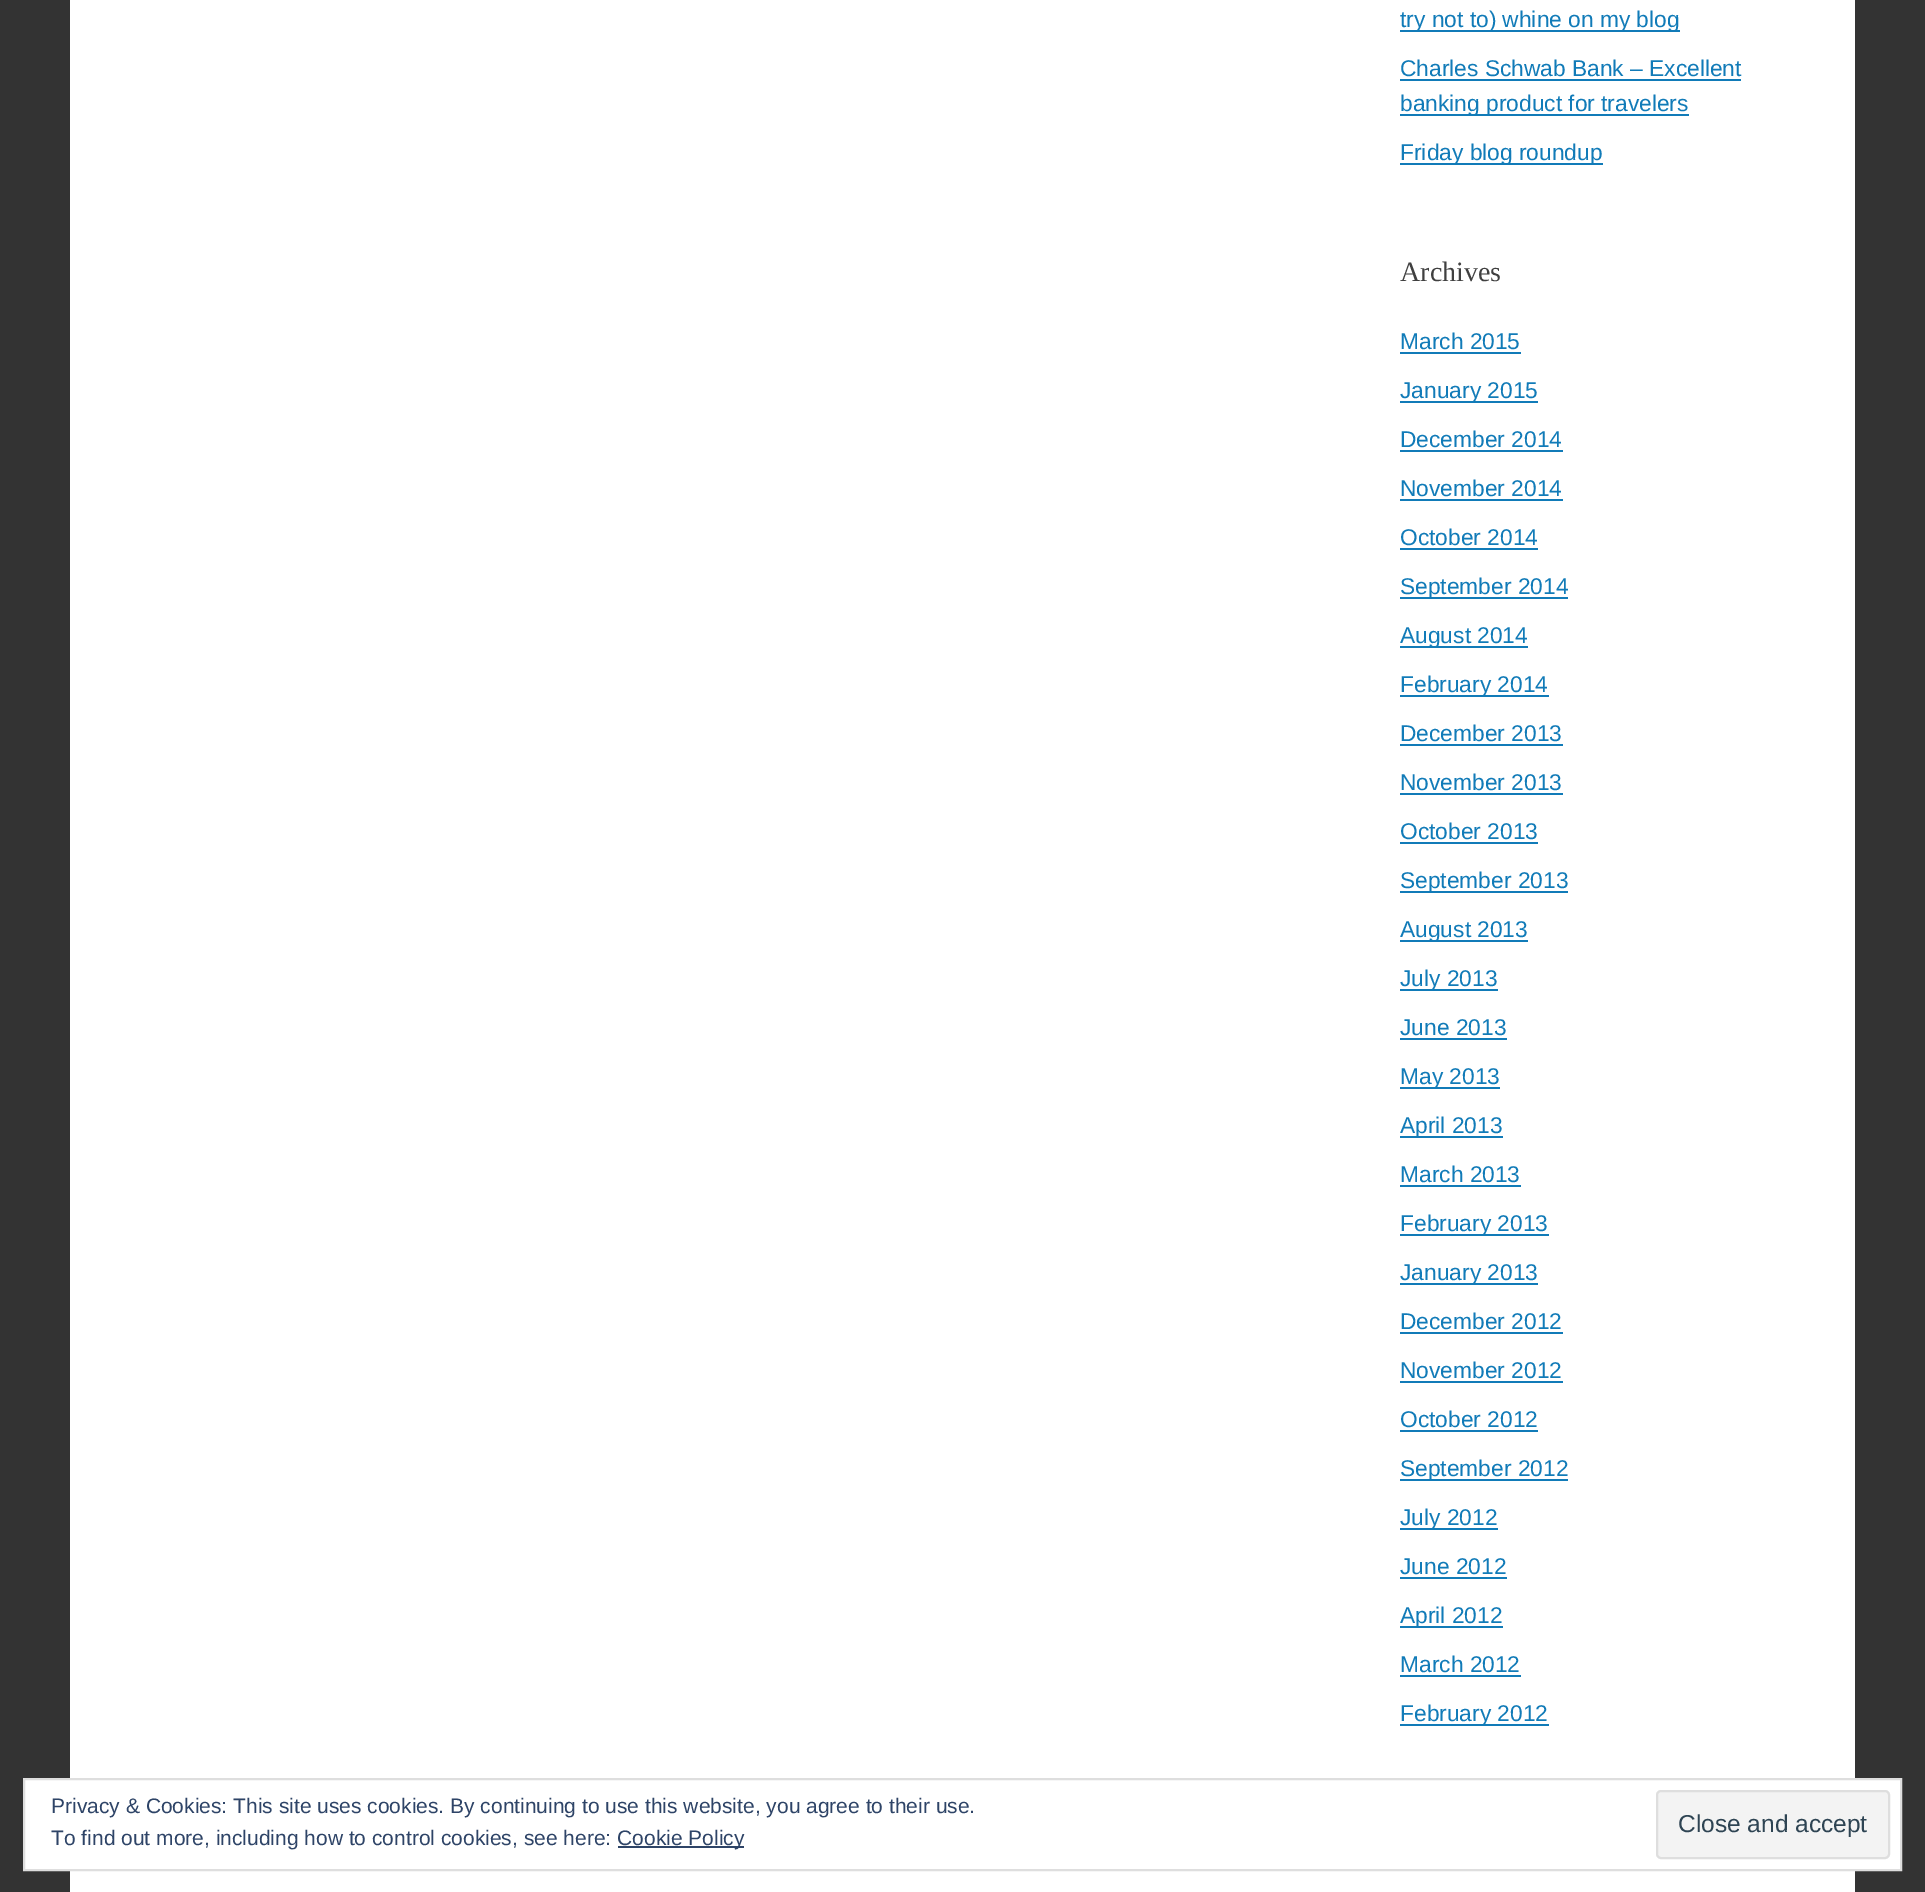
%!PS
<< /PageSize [1925 1892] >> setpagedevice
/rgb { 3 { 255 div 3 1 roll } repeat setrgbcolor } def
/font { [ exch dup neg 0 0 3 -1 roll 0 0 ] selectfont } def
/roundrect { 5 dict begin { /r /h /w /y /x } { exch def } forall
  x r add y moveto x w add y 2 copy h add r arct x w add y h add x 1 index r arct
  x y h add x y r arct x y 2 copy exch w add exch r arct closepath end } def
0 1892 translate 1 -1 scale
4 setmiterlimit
51 51 51 rgb
0 0 1925 1892 rectfill
[
  [70 0 1785 1892 255 255 255]
  [1400 30 280 2 17 123 184]
  [1400 79 341 2 17 123 184]
  [1400 114 289 2 17 123 184]
  [1400 163 203 2 17 123 184]
  [1400 352 121 2 17 123 184]
  [1400 401 138 2 17 123 184]
  [1400 450 163 2 17 123 184]
  [1400 499 163 2 17 123 184]
  [1400 548 138 2 17 123 184]
  [1400 597 168 2 17 123 184]
  [1400 646 128 2 17 123 184]
  [1400 695 149 2 17 123 184]
  [1400 744 163 2 17 123 184]
  [1400 793 163 2 17 123 184]
  [1400 842 138 2 17 123 184]
  [1400 891 168 2 17 123 184]
  [1400 940 128 2 17 123 184]
  [1400 989 98 2 17 123 184]
  [1400 1038 107 2 17 123 184]
  [1400 1087 100 2 17 123 184]
  [1400 1136 103 2 17 123 184]
  [1400 1185 121 2 17 123 184]
  [1400 1234 149 2 17 123 184]
  [1400 1283 138 2 17 123 184]
  [1400 1332 163 2 17 123 184]
  [1400 1381 163 2 17 123 184]
  [1400 1430 138 2 17 123 184]
  [1400 1479 168 2 17 123 184]
  [1400 1528 98 2 17 123 184]
  [1400 1577 107 2 17 123 184]
  [1400 1626 103 2 17 123 184]
  [1400 1675 121 2 17 123 184]
  [1400 1724 149 2 17 123 184]
] { aload pop rgb rectfill } forall
255 255 255 rgb
24 1779 moveto 1901 1779 lineto 1901 1870 lineto 24 1870 lineto closepath gsave fill grestore
222 222 222 rgb
2 setlinewidth
stroke
46 68 103 rgb
618 1846 126 2 rectfill
243 243 243 rgb
1657 1791 232 67 4 roundrect gsave fill grestore
222 222 222 rgb
stroke
/LiberationSans-Regular 22.75 font
17 123 184 rgb
[
  [(try not to\) whine on my blog) 1400 27]
  [(Charles Schwab Bank – Excellent) 1400 76]
  [(banking product for travelers) 1400 111]
  [(Friday blog roundup) 1400 160]
] { aload pop moveto show } forall
/LiberationSerif-Regular 28 font
64 64 64 rgb
1400 281 moveto (Archives) show
/LiberationSans-Regular 22.75 font
17 123 184 rgb
[
  [(March 2015) 1400 349]
  [(January 2015) 1400 398]
  [(December 2014) 1400 447]
  [(November 2014) 1400 496]
  [(October 2014) 1400 545]
  [(September 2014) 1400 594]
  [(August 2014) 1400 643]
  [(February 2014) 1400 692]
  [(December 2013) 1400 741]
  [(November 2013) 1400 790]
  [(October 2013) 1400 839]
  [(September 2013) 1400 888]
  [(August 2013) 1400 937]
  [(July 2013) 1400 986]
  [(June 2013) 1400 1035]
  [(May 2013) 1400 1084]
  [(April 2013) 1400 1133]
  [(March 2013) 1400 1182]
  [(February 2013) 1400 1231]
  [(January 2013) 1400 1280]
  [(December 2012) 1400 1329]
  [(November 2012) 1400 1378]
  [(October 2012) 1400 1427]
  [(September 2012) 1400 1476]
  [(July 2012) 1400 1525]
  [(June 2012) 1400 1574]
  [(April 2012) 1400 1623]
  [(March 2012) 1400 1672]
  [(February 2012) 1400 1721]
] { aload pop moveto show } forall
/LiberationSans-Regular 21 font
46 68 103 rgb
[
  [(Privacy & Cookies: This site uses cookies. By continuing to use this website, you agree to their use.) 51 1813]
  [(To find out more, including how to control cookies, see here:) 51 1845]
  [(Cookie Policy) 617 1845]
] { aload pop moveto show } forall
/LiberationSans-Regular 24.5 font
46 68 83 rgb
1678 1832 moveto (Close and accept) show
showpage
